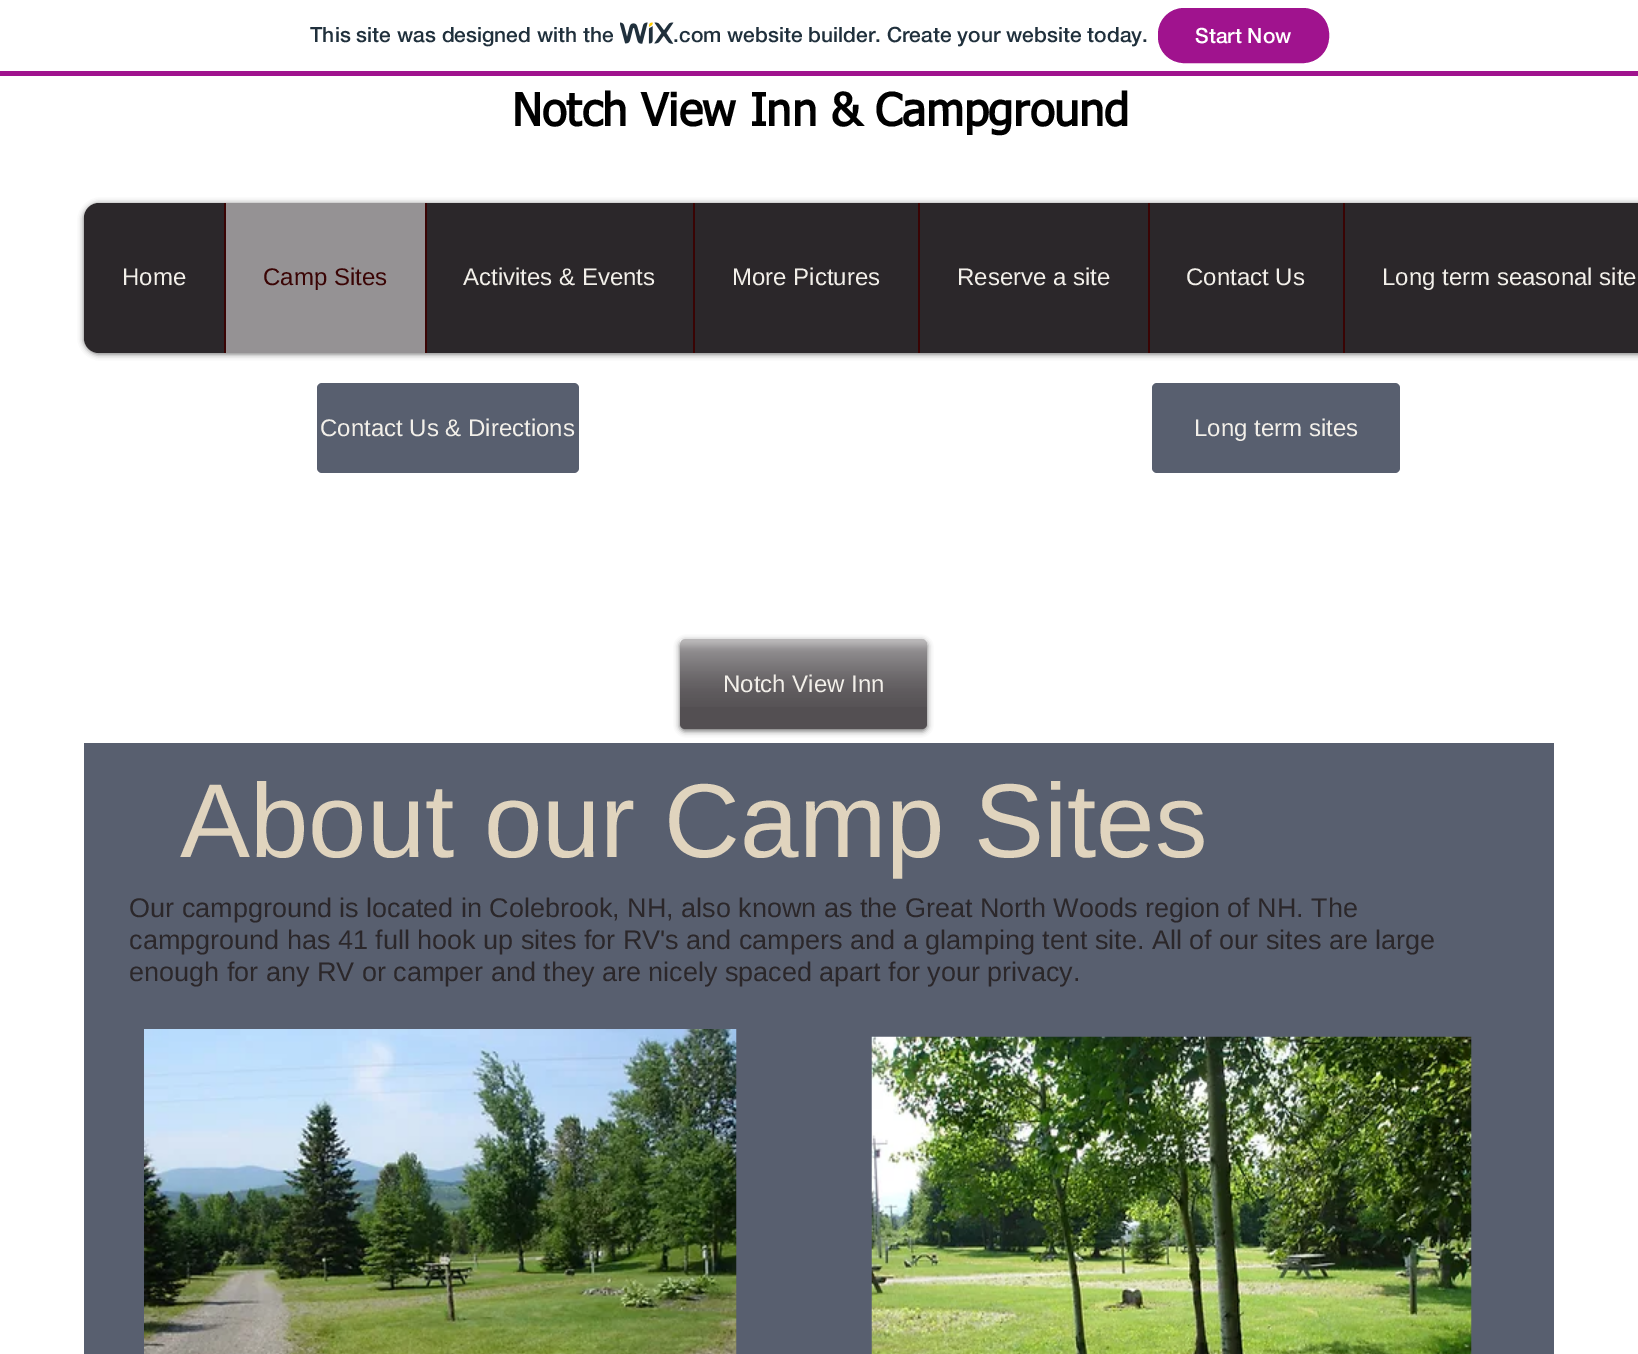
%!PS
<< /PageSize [1638 1354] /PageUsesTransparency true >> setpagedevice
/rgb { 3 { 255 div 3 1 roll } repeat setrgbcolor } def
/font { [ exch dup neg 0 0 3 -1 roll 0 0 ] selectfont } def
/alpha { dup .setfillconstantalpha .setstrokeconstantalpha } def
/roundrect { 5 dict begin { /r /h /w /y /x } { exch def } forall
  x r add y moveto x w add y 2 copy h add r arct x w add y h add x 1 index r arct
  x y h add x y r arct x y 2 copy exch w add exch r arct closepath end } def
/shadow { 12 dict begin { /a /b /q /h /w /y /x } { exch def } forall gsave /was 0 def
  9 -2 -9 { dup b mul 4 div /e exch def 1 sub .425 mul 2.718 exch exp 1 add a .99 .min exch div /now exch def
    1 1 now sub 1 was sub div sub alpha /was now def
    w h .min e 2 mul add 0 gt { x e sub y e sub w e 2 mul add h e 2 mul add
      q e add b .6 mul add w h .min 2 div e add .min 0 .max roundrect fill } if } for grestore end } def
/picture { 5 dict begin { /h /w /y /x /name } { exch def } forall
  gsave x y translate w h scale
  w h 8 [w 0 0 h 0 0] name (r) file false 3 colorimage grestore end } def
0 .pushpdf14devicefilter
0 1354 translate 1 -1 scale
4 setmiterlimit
255 255 255 rgb
0 0 1638 1354 rectfill
160 19 142 rgb
0 71 1638 5 rectfill
(img/1.rgb) 620 22 54 22 picture
1159 9 169 53 25 roundrect gsave fill grestore
2 setlinewidth
stroke
0 0 0 rgb
84 204 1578 150 15 3 0.6 shadow
43 39 42 rgb
84 203 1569 150 15 roundrect fill
[
  [226 203 199 150 149 146 148]
  [224 203 2 150 58 4 4]
  [425 203 2 150 58 4 4]
  [693 203 2 150 58 4 4]
  [918 203 2 150 58 4 4]
  [1148 203 2 150 58 4 4]
  [1343 203 2 150 58 4 4]
] { aload pop rgb rectfill } forall
88 95 111 rgb
317 383 262 90 5 roundrect fill
1152 383 248 90 5 roundrect fill
0 0 0 rgb
680 641 247 90 5 3 0.6 shadow
83 79 82 rgb
680 639 247 90 5 roundrect fill
(img/2.rgb) 680 639 247 68 picture
88 95 111 rgb
84 743 1470 611 rectfill
(img/3.rgb) 144 1029 593 325 picture
(img/4.rgb) 871 1036 601 318 picture
/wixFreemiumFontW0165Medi-Medium 21 font
32 48 60 rgb
310 42 moveto (This site was designed with the) show
673 42 moveto (.com website builder. Create your website today.) show
255 255 255 rgb
1195 43 moveto (Start Now) show
/tahoma-Bold 45 font
0 0 0 rgb
512 126 moveto (Notch View Inn & Campground) show
/LiberationSans-Regular 24 font
242 239 233 rgb
122 285 moveto (Home) show
58 4 4 rgb
263 285 moveto (Camp Sites) show
242 239 233 rgb
[
  [(Activites & Events) 463 285]
  [(More Pictures) 732 285]
  [(Reserve a site) 957 285]
  [(Contact Us) 1186 285]
  [(Long term seasonal site) 1382 285]
  [(Contact Us & Directions) 320 436]
  [(Long term sites) 1194 436]
  [(Notch View Inn) 723 692]
] { aload pop moveto show } forall
/LiberationSans-Regular 105 font
224 212 190 rgb
180 857 moveto (About our Camp Sites) show
/LiberationSans-Regular 27 font
43 39 42 rgb
[
  [(Our campground is located in Colebrook, NH, also known as the Great North Woods region of NH. The) 129 917]
  [(campground has 41 full hook up sites for RV's and campers and a glamping tent site. All of our sites are large) 129 949]
  [(enough for any RV or camper and they are nicely spaced apart for your privacy.) 129 981]
] { aload pop moveto show } forall
.poppdf14devicefilter showpage
